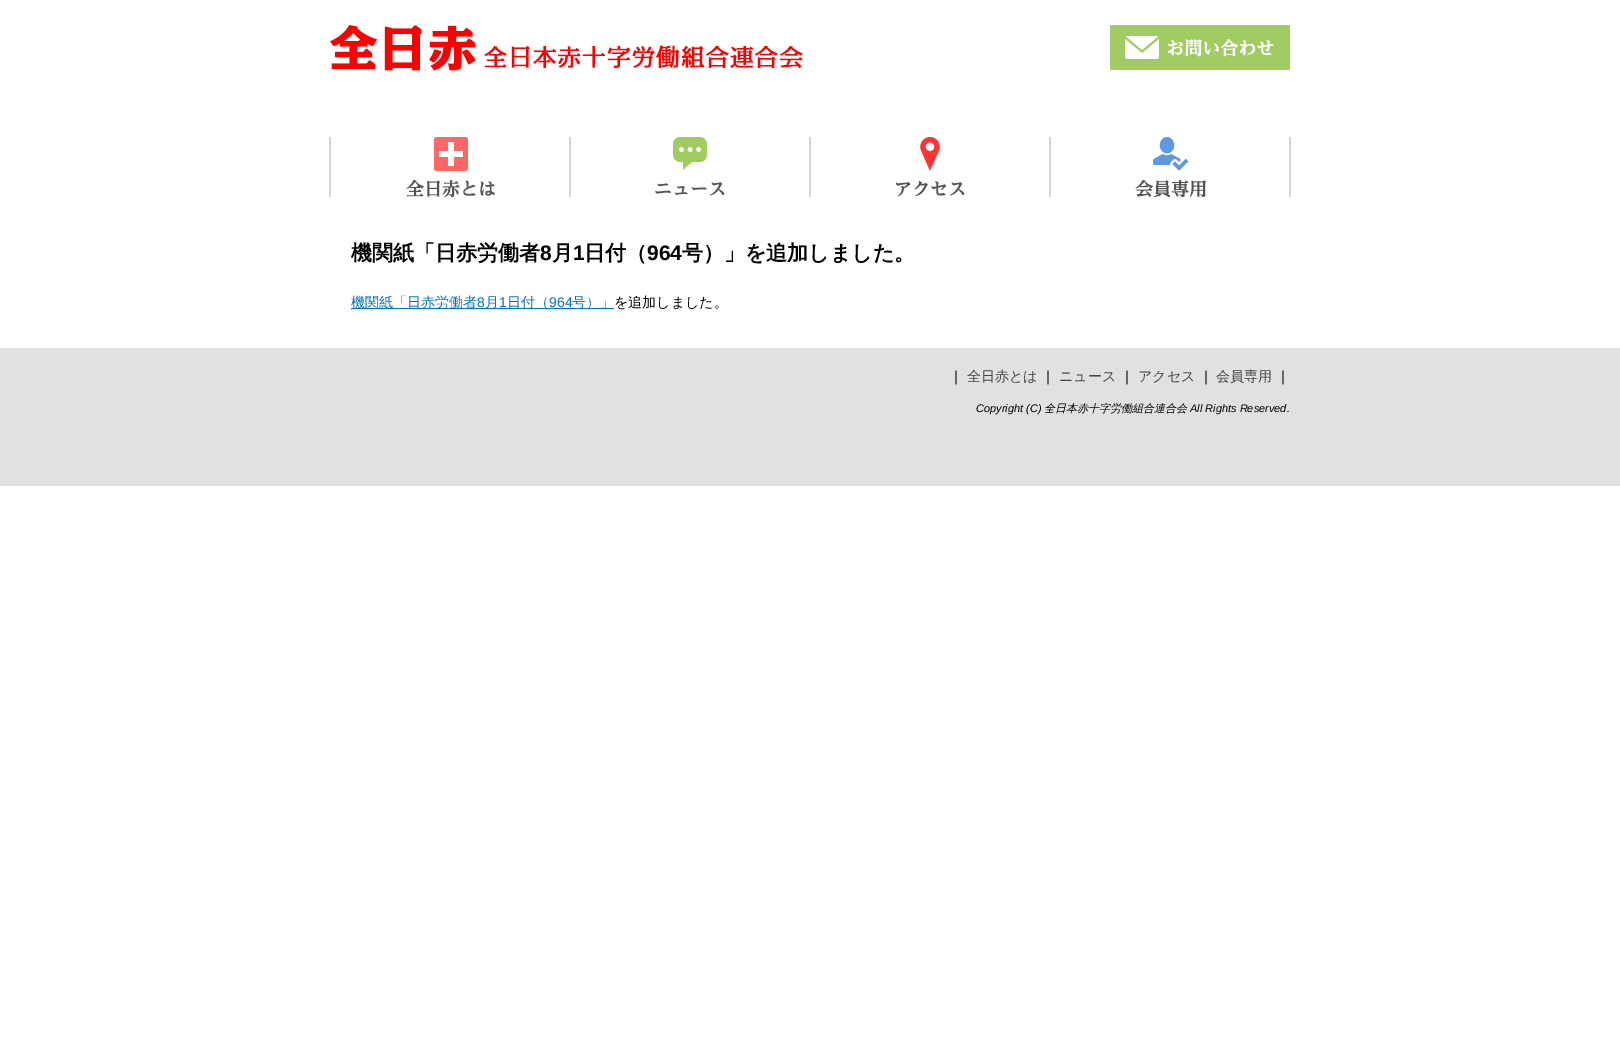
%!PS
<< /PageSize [1620 1046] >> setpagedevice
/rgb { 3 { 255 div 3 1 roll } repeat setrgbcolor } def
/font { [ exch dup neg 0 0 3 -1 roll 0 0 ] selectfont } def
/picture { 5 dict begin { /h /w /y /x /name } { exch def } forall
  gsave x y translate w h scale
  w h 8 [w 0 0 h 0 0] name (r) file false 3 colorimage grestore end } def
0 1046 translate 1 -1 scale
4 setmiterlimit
255 255 255 rgb
0 0 1620 1046 rectfill
(img/1.rgb) 330 25 473 46 picture
(img/2.rgb) 1110 25 180 45 picture
[
  [1289 137 2 60 212 212 212]
  [329 137 2 60 212 212 212]
  [569 137 2 60 212 212 212]
] { aload pop rgb rectfill } forall
(img/3.rgb) 406 137 89 60 picture
809 137 2 60 rectfill
(img/4.rgb) 655 137 70 59 picture
1049 137 2 60 rectfill
(img/5.rgb) 896 137 69 60 picture
(img/6.rgb) 1135 137 71 60 picture
0 117 194 rgb
351 308 263 1 rectfill
226 225 224 rgb
0 348 1620 138 rectfill
/WenQuanYiZenHei-Bold 21 font
0 0 0 rgb
351 260 moveto (機関紙「日赤労働者) show
/LiberationSans-Bold 21 font
540 260 moveto (8) show
/WenQuanYiZenHei-Bold 21 font
552 260 moveto (月) show
/LiberationSans-Bold 21 font
573 260 moveto (1) show
/WenQuanYiZenHei-Bold 21 font
584 260 moveto (日付（) show
/LiberationSans-Bold 21 font
647 260 moveto (964) show
/WenQuanYiZenHei-Bold 21 font
682 260 moveto (号）」を追加しました。) show
/WenQuanYiZenHei-Medium 14 font
0 117 194 rgb
351 307 moveto (機関紙「日赤労働者) show
/LiberationSans-Regular 14 font
477 307 moveto (8) show
/WenQuanYiZenHei-Medium 14 font
485 307 moveto (月) show
/LiberationSans-Regular 14 font
499 307 moveto (1) show
/WenQuanYiZenHei-Medium 14 font
507 307 moveto (日付（) show
/LiberationSans-Regular 14 font
549 307 moveto (964) show
/WenQuanYiZenHei-Medium 14 font
572 307 moveto (号）」) show
0 0 0 rgb
614 307 moveto (を追加しました。) show
949 381 moveto (｜) show
68 68 68 rgb
967 381 moveto (全日赤とは) show
0 0 0 rgb
1041 381 moveto (｜) show
68 68 68 rgb
1059 381 moveto (ニュース) show
0 0 0 rgb
1120 381 moveto (｜) show
68 68 68 rgb
1138 381 moveto (アクセス) show
0 0 0 rgb
1199 381 moveto (｜) show
68 68 68 rgb
1216 381 moveto (会員専用) show
0 0 0 rgb
1276 381 moveto (｜) show
/LiberationSans-Italic 11 font
976 412 moveto (Copyright \(C\)) show
/WenQuanYiZenHei-MediumItalic 11 font
1044 412 moveto (全日本赤十字労働組合連合会) show
/LiberationSans-Italic 11 font
1190 412 moveto (All Rights Reserved.) show
showpage
